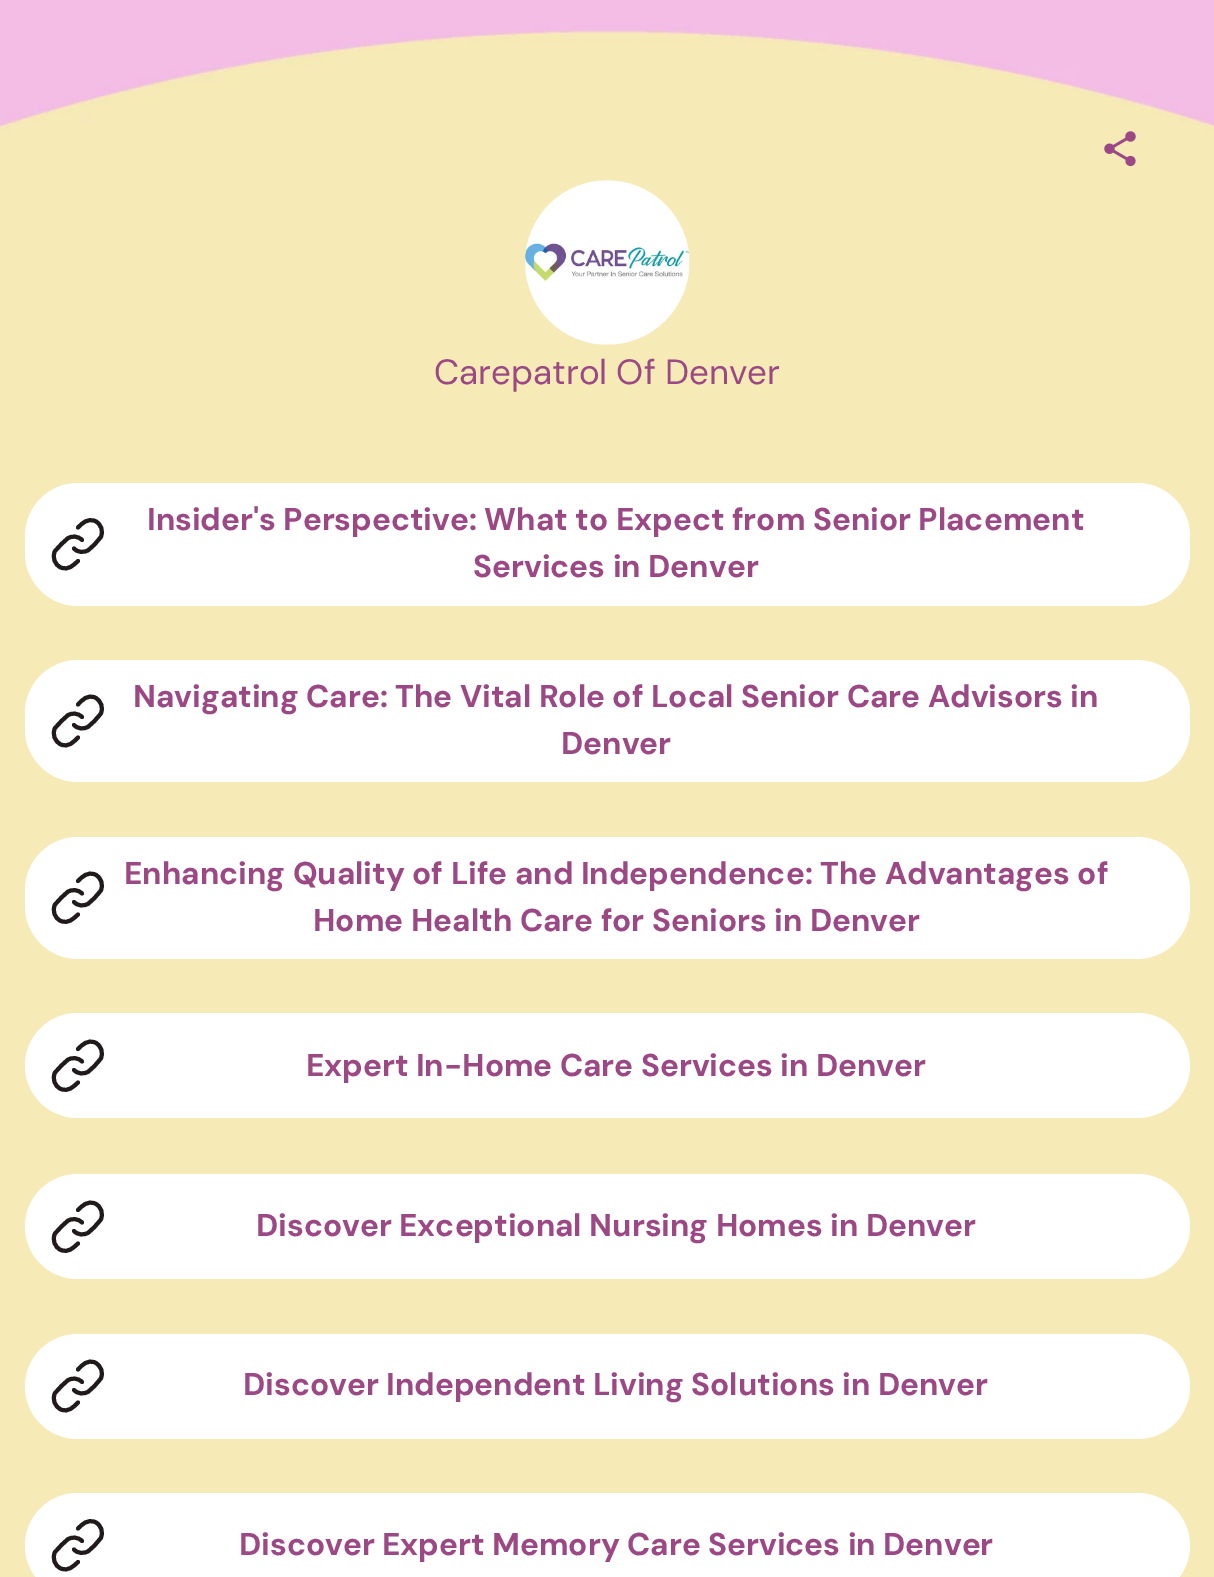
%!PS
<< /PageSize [1214 1577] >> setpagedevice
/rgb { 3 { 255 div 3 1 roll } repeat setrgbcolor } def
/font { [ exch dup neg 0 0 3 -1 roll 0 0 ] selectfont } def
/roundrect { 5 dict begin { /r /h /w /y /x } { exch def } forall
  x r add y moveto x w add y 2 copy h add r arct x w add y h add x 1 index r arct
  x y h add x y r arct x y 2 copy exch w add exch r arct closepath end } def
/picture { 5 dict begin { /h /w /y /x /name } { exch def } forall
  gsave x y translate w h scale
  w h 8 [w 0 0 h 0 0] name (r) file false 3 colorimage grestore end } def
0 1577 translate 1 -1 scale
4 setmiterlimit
255 255 255 rgb
0 0 1214 1577 rectfill
(img/1.rgb) 0 0 1214 1577 picture
(img/2.rgb) 1104 131 32 36 picture
(img/3.rgb) 525 180 165 165 picture
25 483 1165 123 53 roundrect fill
32 26 27 rgb
4 setlinewidth
1 setlinecap
1 setlinejoin
82 540 moveto 78 536 72 535.5 67.5 538.5 curveto 61.5 544 lineto 55 551 lineto 52 557 54.5 565 61 567.5 curveto 68.5 570.5 73 565.5 78 561 curveto 74 548.5 moveto 77.5 552.5 84 553 88.5 550 curveto 94.5 544.5 lineto 100.5 537.5 lineto 104 531.5 101 523.5 95 521 curveto 87.5 518 82.5 523 78 527.5 curveto stroke
255 255 255 rgb
25 660 1165 122 53 roundrect fill
32 26 27 rgb
82 717 moveto 78 713 72 712.5 67.5 715.5 curveto 61.5 721 lineto 55 728 lineto 52 734 54.5 741.5 61 744.5 curveto 68.5 747.5 73 742.5 78 737.5 curveto 74 725 moveto 77.5 729 84 729.5 88.5 726.5 curveto 94.5 721 lineto 100.5 714 lineto 104 708 101 700.5 95 697.5 curveto 87.5 694.5 82.5 699.5 78 704.5 curveto stroke
255 255 255 rgb
25 837 1165 122 53 roundrect fill
32 26 27 rgb
82 893.5 moveto 78 889.5 72 889 67.5 892 curveto 61.5 897.5 lineto 55 904.5 lineto 52 910.5 54.5 918.5 61 921 curveto 68.5 924 73 919 78 914.5 curveto 74 902 moveto 77.5 906 84 906.5 88.5 903.5 curveto 94.5 898 lineto 100.5 891 lineto 104 885 101 877 95 874.5 curveto 87.5 871.5 82.5 876.5 78 881 curveto stroke
255 255 255 rgb
25 1013 1165 105 52.5 roundrect fill
32 26 27 rgb
82 1061.5 moveto 78 1057.5 72 1057 67.5 1060 curveto 61.5 1065.5 lineto 55 1072.5 lineto 52 1078.5 54.5 1086.5 61 1089 curveto 68.5 1092 73 1087 78 1082.5 curveto 74 1070 moveto 77.5 1074 84 1074.5 88.5 1071.5 curveto 94.5 1066 lineto 100.5 1059 lineto 104 1053 101 1045 95 1042.5 curveto 87.5 1039.5 82.5 1044.5 78 1049 curveto stroke
255 255 255 rgb
25 1174 1165 105 52.5 roundrect fill
32 26 27 rgb
82 1222.5 moveto 78 1218.5 72 1218 67.5 1221 curveto 61.5 1226.5 lineto 55 1233.5 lineto 52 1239.5 54.5 1247.5 61 1250 curveto 68.5 1253 73 1248 78 1243.5 curveto 74 1231 moveto 77.5 1235 84 1235.5 88.5 1232.5 curveto 94.5 1227 lineto 100.5 1220 lineto 104 1214 101 1206 95 1203.5 curveto 87.5 1200.5 82.5 1205.5 78 1210 curveto stroke
255 255 255 rgb
25 1334 1165 105 52.5 roundrect fill
32 26 27 rgb
82 1382 moveto 78 1378 72 1377.5 67.5 1380.5 curveto 61.5 1386 lineto 55 1393 lineto 52 1399 54.5 1406.5 61 1409.5 curveto 68.5 1412.5 73 1407.5 78 1402.5 curveto 74 1390 moveto 77.5 1394 84 1394.5 88.5 1391.5 curveto 94.5 1386 lineto 100.5 1379 lineto 104 1373 101 1365.5 95 1362.5 curveto 87.5 1359.5 82.5 1364.5 78 1369.5 curveto stroke
255 255 255 rgb
25 1493 1165 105 52.5 roundrect fill
32 26 27 rgb
82 1541 moveto 78 1537 72 1536.5 67.5 1539.5 curveto 61.5 1545 lineto 55 1552 lineto 52 1558 54.5 1566 61 1568.5 curveto 68.5 1571.5 73 1566.5 78 1562 curveto 74 1549.5 moveto 77.5 1553.5 84 1554 88.5 1551 curveto 94.5 1545.5 lineto 100.5 1538.5 lineto 104 1532.5 101 1524.5 95 1522 curveto 87.5 1519 82.5 1524 78 1528.5 curveto stroke
/DMSans-Regular 35 font
155 72 133 rgb
434 384 moveto (Carepatrol Of Denver) show
/DMSans-Bold 31.5 font
[
  [(Insider's Perspective: What to Expect from Senior Placement) 147 530]
  [(Services in Denver) 473 577]
  [(Navigating Care: The Vital Role of Local Senior Care Advisors in) 133 707]
  [(Denver) 561 754]
  [(Enhancing Quality of Life and Independence: The Advantages of) 124 884]
  [(Home Health Care for Seniors in Denver) 313 931]
  [(Expert In-Home Care Services in Denver) 306 1076]
  [(Discover Exceptional Nursing Homes in Denver) 256 1236]
  [(Discover Independent Living Solutions in Denver) 243 1395]
  [(Discover Expert Memory Care Services in Denver) 239 1555]
] { aload pop moveto show } forall
showpage
